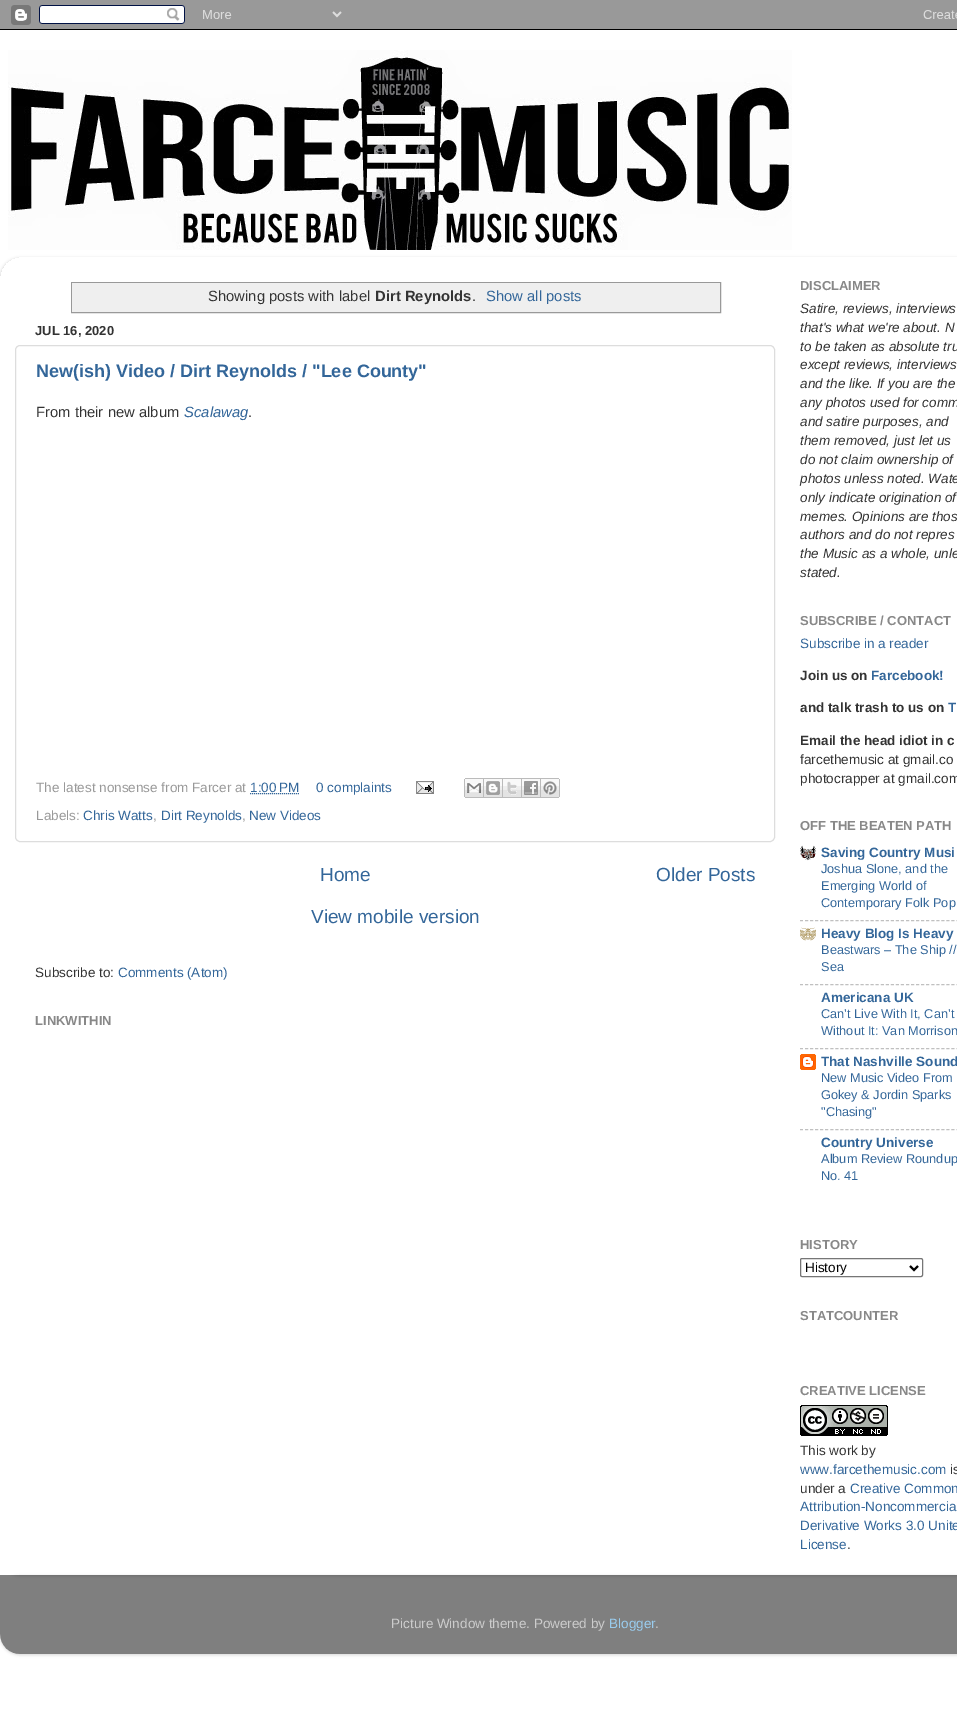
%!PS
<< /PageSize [957 1735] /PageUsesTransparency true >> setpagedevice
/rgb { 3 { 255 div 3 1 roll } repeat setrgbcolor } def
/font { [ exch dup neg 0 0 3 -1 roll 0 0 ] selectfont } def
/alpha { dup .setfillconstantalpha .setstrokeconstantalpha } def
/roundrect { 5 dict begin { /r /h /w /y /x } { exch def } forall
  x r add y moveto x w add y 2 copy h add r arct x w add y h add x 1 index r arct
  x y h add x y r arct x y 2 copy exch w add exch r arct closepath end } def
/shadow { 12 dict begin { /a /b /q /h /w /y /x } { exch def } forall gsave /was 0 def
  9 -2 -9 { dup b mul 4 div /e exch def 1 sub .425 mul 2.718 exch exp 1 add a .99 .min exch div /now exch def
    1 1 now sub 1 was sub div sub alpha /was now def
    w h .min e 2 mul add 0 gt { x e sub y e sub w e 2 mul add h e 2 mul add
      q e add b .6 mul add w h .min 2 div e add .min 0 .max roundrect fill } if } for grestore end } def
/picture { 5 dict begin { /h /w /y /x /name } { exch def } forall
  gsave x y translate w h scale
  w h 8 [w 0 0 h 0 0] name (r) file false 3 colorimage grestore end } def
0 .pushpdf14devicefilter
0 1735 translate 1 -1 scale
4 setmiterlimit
255 255 255 rgb
0 0 957 1735 rectfill
(img/1.rgb) 0 0 957 30 picture
(img/2.rgb) 8 50 784 200 picture
gsave
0 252 moveto 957 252 lineto 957 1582 lineto 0 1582 lineto closepath 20 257 moveto 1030 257 lineto 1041 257 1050 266 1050 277 curveto 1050 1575 lineto 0 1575 lineto 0 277 lineto 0 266 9 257 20 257 curveto closepath eoclip newpath
0 0 0 rgb
0 258 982 1318 20 1.5 0.15 shadow
grestore
153 153 153 rgb
71.5 282.5 649 30 rectstroke
239 239 239 rgb
72 283 648 29 rectfill
221 221 221 rgb
15.5 345.5 759 496 4.5 roundrect stroke
51 102 153 rgb
[1 1] 0 setdash
250 793.5 moveto 299 793.5 lineto stroke
(img/3.rgb) 416 781 18 13 picture
(img/4.rgb) 464 778 20 20 picture
(img/5.rgb) 484 778 19 20 picture
(img/6.rgb) 503 778 19 20 picture
(img/7.rgb) 522 778 19 20 picture
(img/8.rgb) 541 778 19 20 picture
(img/9.rgb) 800 845 16 16 picture
192 192 192 rgb
[3 2.05] 0 setdash
800 920.5 moveto 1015 920.5 lineto stroke
(img/10.rgb) 800 927 16 14 picture
800 984.5 moveto 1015 984.5 lineto stroke
800 1048.5 moveto 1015 1048.5 lineto stroke
(img/11.rgb) 800 1054 16 16 picture
800 1129.5 moveto 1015 1129.5 lineto stroke
118 118 118 rgb
[] 0 setdash
800.5 1258.5 122 18 1.5 roundrect stroke
0 0 0 rgb
2 setlinewidth
910 1266 moveto 914 1270 lineto 918 1266 lineto stroke
(img/12.rgb) 800 1405 88 31 picture
gsave
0 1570 moveto 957 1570 lineto 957 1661 lineto 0 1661 lineto closepath 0 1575 moveto 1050 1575 lineto 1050 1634 lineto 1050 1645 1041 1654 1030 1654 curveto 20 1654 lineto 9 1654 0 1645 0 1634 curveto closepath eoclip newpath
0 1576 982 79 20 1.5 0.15 shadow
grestore
(img/13.rgb) 0 1575 957 79 picture
/LiberationSans-Regular 14.8 font
51 51 51 rgb
208 301 moveto (Showing posts with label) show
/LiberationSans-Bold 14.8 font
375 301 moveto (Dirt Reynolds) show
/LiberationSans-Regular 14.8 font
472 301 moveto (.) show
51 102 153 rgb
486 301 moveto (Show all posts) show
/LiberationSans-Bold 13 font
51 51 51 rgb
35 335 moveto (JUL 16, 2020) show
/LiberationSans-Bold 18 font
51 102 153 rgb
36 377 moveto (New\(ish\) Video / Dirt Reynolds / "Lee County") show
/LiberationSans-Regular 14.8 font
51 51 51 rgb
36 417 moveto (From their new album) show
/LiberationSans-Italic 14.8 font
51 102 153 rgb
184 417 moveto (Scalawag) show
/LiberationSans-Regular 14.8 font
51 51 51 rgb
248 417 moveto (.) show
/LiberationSans-Regular 13.5 font
153 153 153 rgb
36 792 moveto (The latest nonsense from Farcer at) show
51 102 153 rgb
250 792 moveto (1:00 PM) show
316 792 moveto (0 complaints) show
153 153 153 rgb
36 820 moveto (Labels:) show
51 102 153 rgb
83 820 moveto (Chris Watts) show
153 153 153 rgb
153 820 moveto (,) show
51 102 153 rgb
161 820 moveto (Dirt Reynolds) show
153 153 153 rgb
242 820 moveto (,) show
51 102 153 rgb
249 820 moveto (New Videos) show
/LiberationSans-Regular 19 font
[
  [(Home) 320 881]
  [(Older Posts) 656 881]
  [(View mobile version) 311 923]
] { aload pop moveto show } forall
/LiberationSans-Regular 13.5 font
51 51 51 rgb
35 977 moveto (Subscribe to:) show
51 102 153 rgb
118 977 moveto (Comments \(Atom\)) show
/LiberationSans-Bold 13 font
136 136 136 rgb
35 1025 moveto (LINKWITHIN) show
800 290 moveto (DISCLAIMER) show
/LiberationSans-Italic 13.5 font
51 51 51 rgb
[
  [(Satire, reviews, interviews) 800 313]
  [(that's what we're about. N) 800 332]
  [(to be taken as absolute tru) 800 351]
  [(except reviews, interviews) 800 369]
  [(and the like. If you are the) 800 388]
  [(any photos used for comm) 800 407]
  [(and satire purposes, and) 800 426]
  [(them removed, just let us) 800 445]
  [(do not claim ownership of) 800 464]
  [(photos unless noted. Wate) 800 483]
  [(only indicate origination of) 800 502]
  [(memes. Opinions are thos) 800 521]
  [(authors and do not repres) 800 539]
  [(the Music as a whole, unle) 800 558]
  [(stated.) 800 577]
] { aload pop moveto show } forall
/LiberationSans-Bold 13 font
136 136 136 rgb
800 625 moveto (SUBSCRIBE / CONTACT) show
/LiberationSans-Regular 13.5 font
51 102 153 rgb
800 648 moveto (Subscribe in a reader) show
/LiberationSans-Bold 13.5 font
51 51 51 rgb
800 680 moveto (Join us on) show
51 102 153 rgb
871 680 moveto (Farcebook!) show
51 51 51 rgb
800 712 moveto (and talk trash to us on) show
51 102 153 rgb
948 712 moveto (T) show
51 51 51 rgb
800 745 moveto (Email the head idiot in c) show
/LiberationSans-Regular 13.5 font
800 764 moveto (farcethemusic at gmail.co) show
800 783 moveto (photocrapper at gmail.com) show
/LiberationSans-Bold 13 font
136 136 136 rgb
800 830 moveto (OFF THE BEATEN PATH) show
/LiberationSans-Bold 13.5 font
51 102 153 rgb
821 857 moveto (Saving Country Musi) show
/LiberationSans-Regular 12.75 font
[
  [(Joshua Slone, and the) 821 873]
  [(Emerging World of) 821 890]
  [(Contemporary Folk Pop) 821 907]
] { aload pop moveto show } forall
/LiberationSans-Bold 13.5 font
821 938 moveto (Heavy Blog Is Heavy) show
/LiberationSans-Regular 12.75 font
821 954 moveto (Beastwars – The Ship //) show
821 971 moveto (Sea) show
/LiberationSans-Bold 13.5 font
821 1002 moveto (Americana UK) show
/LiberationSans-Regular 12.75 font
821 1018 moveto (Can’t Live With It, Can’t) show
821 1035 moveto (Without It: Van Morrison) show
/LiberationSans-Bold 13.5 font
821 1066 moveto (That Nashville Sound) show
/LiberationSans-Regular 12.75 font
[
  [(New Music Video From) 821 1082]
  [(Gokey & Jordin Sparks) 821 1099]
  [("Chasing") 821 1116]
] { aload pop moveto show } forall
/LiberationSans-Bold 13.5 font
821 1147 moveto (Country Universe) show
/LiberationSans-Regular 12.75 font
821 1163 moveto (Album Review Roundup) show
821 1180 moveto (No. 41) show
/LiberationSans-Bold 13 font
136 136 136 rgb
800 1249 moveto (HISTORY) show
/LiberationSans-Regular 13.5 font
0 0 0 rgb
805 1272 moveto (History) show
/LiberationSans-Bold 13 font
136 136 136 rgb
800 1320 moveto (STATCOUNTER) show
800 1395 moveto (CREATIVE LICENSE) show
/LiberationSans-Regular 13.5 font
51 51 51 rgb
800 1455 moveto (This work by) show
51 102 153 rgb
800 1474 moveto (www.farcethemusic.com) show
51 51 51 rgb
950 1474 moveto (is) show
800 1493 moveto (under a) show
51 102 153 rgb
[
  [(Creative Common) 850 1493]
  [(Attribution-Noncommercia) 800 1511]
  [(Derivative Works 3.0 Unite) 800 1530]
  [(License) 800 1549]
] { aload pop moveto show } forall
51 51 51 rgb
847 1549 moveto (.) show
204 204 204 rgb
391 1628 moveto (Picture Window theme. Powered by) show
153 204 238 rgb
609 1628 moveto (Blogger) show
204 204 204 rgb
655 1628 moveto (.) show
.poppdf14devicefilter showpage
